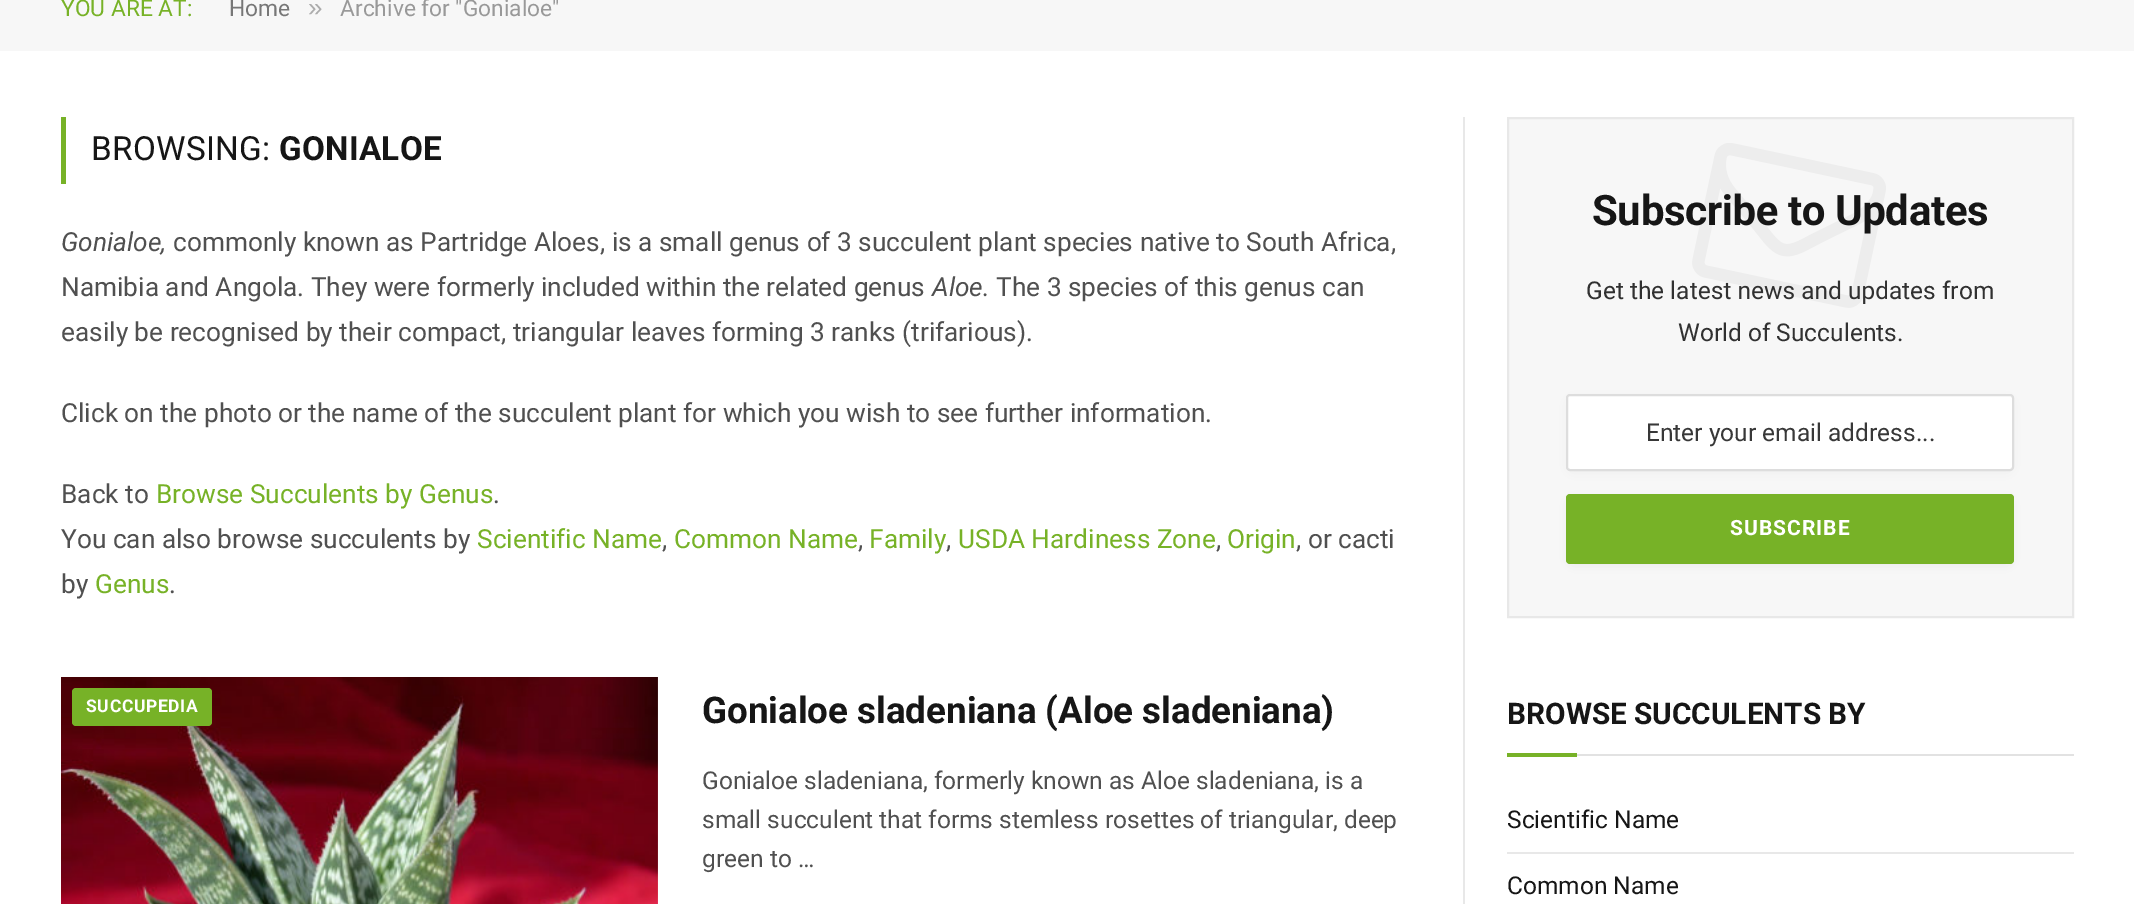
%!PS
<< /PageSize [2134 904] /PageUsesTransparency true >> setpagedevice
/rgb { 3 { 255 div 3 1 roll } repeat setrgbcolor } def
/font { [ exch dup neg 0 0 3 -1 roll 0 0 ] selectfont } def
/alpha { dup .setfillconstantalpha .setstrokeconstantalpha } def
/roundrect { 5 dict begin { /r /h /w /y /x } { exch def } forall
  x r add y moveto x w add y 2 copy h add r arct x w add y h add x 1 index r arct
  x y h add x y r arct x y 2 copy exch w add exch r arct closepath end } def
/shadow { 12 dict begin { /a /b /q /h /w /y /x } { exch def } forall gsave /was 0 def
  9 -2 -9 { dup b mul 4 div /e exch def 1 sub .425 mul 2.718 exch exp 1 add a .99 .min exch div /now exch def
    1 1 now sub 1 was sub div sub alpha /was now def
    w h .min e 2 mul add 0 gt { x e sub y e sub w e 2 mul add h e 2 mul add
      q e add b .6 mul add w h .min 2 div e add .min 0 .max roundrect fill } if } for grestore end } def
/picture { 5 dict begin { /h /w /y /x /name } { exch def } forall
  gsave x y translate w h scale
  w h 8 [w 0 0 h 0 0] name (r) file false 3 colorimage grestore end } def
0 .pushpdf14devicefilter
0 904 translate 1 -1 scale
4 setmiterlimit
255 255 255 rgb
0 0 2134 904 rectfill
247 247 247 rgb
0 0 2134 51 rectfill
119 178 39 rgb
61 117 5 67 rectfill
(img/1.rgb) 61 677 597 227 picture
72 688 140 38 4 roundrect fill
232 232 232 rgb
1463 117 2 787 rectfill
247 247 247 rgb
1508 118 moveto 2073 118 lineto 2073 617 lineto 1508 617 lineto closepath gsave fill grestore
232 232 232 rgb
2 setlinewidth
stroke
0 0 0 rgb
1573 404 434 63 0 6 0.1 shadow
255 255 255 rgb
1567 395 446 75 3 roundrect gsave fill grestore
221 221 221 rgb
stroke
0 0 0 rgb
1573 504 434 56 0 6 0.16 shadow
119 178 39 rgb
1566 494 448 70 4 roundrect fill
[
  [1577 754 497 2 226 226 226]
  [1507 753 70 4 119 178 39]
  [1507 852 567 2 232 232 232]
] { aload pop rgb rectfill } forall
/Roboto-Regular 22.75 font
119 178 39 rgb
61 16 moveto (YOU ARE AT:) show
119 119 119 rgb
229 16 moveto (Home) show
/LiberationSans-Regular 26 font
172 172 172 rgb
308 16 moveto (») show
/Roboto-Regular 22.75 font
153 153 153 rgb
340 16 moveto (Archive for "Gonialoe") show
/Roboto-Regular 33.25 font
22 22 22 rgb
91 160 moveto 0.25 0 (BROWSING:) ashow
/Roboto-Bold 33.25 font
279 160 moveto 0.25 0 (GONIALOE) ashow
/Roboto-Italic 26.25 font
80 80 80 rgb
61 251 moveto (Gonialoe,) show
/Roboto-Regular 26.25 font
173 251 moveto (commonly known as Partridge Aloes, is a small genus of 3 succulent plant species native to South Africa,) show
61 296 moveto (Namibia and Angola. They were formerly included within the related genus) show
/Roboto-Italic 26.25 font
932 296 moveto (Aloe.) show
/Roboto-Regular 26.25 font
[
  [(The 3 species of this genus can) 996 296]
  [(easily be recognised by their compact, triangular leaves forming 3 ranks \(trifarious\).) 61 341]
  [(Click on the photo or the name of the succulent plant for which you wish to see further information.) 61 422]
  [(Back to) 61 503]
] { aload pop moveto show } forall
119 178 39 rgb
156 503 moveto (Browse Succulents by Genus) show
80 80 80 rgb
493 503 moveto (.) show
61 548 moveto (You can also browse succulents by) show
119 178 39 rgb
477 548 moveto (Scientific Name) show
80 80 80 rgb
662 548 moveto (,) show
119 178 39 rgb
674 548 moveto (Common Name) show
80 80 80 rgb
858 548 moveto (,) show
119 178 39 rgb
869 548 moveto (Family) show
80 80 80 rgb
946 548 moveto (,) show
119 178 39 rgb
958 548 moveto (USDA Hardiness Zone) show
80 80 80 rgb
1216 548 moveto (,) show
119 178 39 rgb
1227 548 moveto (Origin) show
80 80 80 rgb
1296 548 moveto (, or cacti) show
61 593 moveto (by) show
119 178 39 rgb
95 593 moveto (Genus) show
80 80 80 rgb
169 593 moveto (.) show
/Roboto-Bold 17.5 font
255 255 255 rgb
86 712 moveto 0.6 0 (SUCCUPEDIA) ashow
/Roboto-Bold 36.75 font
22 22 22 rgb
702 723 moveto (Gonialoe sladeniana \(Aloe sladeniana\)) show
/Roboto-Regular 24.5 font
80 80 80 rgb
[
  [(Gonialoe sladeniana, formerly known as Aloe sladeniana, is a) 702 789]
  [(small succulent that forms stemless rosettes of triangular, deep) 702 828]
  [(green to …) 702 867]
] { aload pop moveto show } forall
/Roboto-Bold 42 font
22 22 22 rgb
1592 225 moveto -0.4 0 (Subscribe to Updates) ashow
/Roboto-Regular 24.5 font
49 49 49 rgb
1586 299 moveto (Get the latest news and updates from) show
(img/2.rgb) 1692 143 194 165 picture
1678 341 moveto (World of Succulents.) show
56 56 56 rgb
1646 441 moveto (Enter your email address...) show
/Roboto-Bold 21 font
255 255 255 rgb
1730 535 moveto 1 0 (SUBSCRIBE) ashow
/Roboto-Bold 29.75 font
22 22 22 rgb
1507 724 moveto (BROWSE SUCCULENTS BY) show
/Roboto-Regular 24.5 font
1507 828 moveto (Scientific Name) show
1507 894 moveto (Common Name) show
.poppdf14devicefilter showpage
